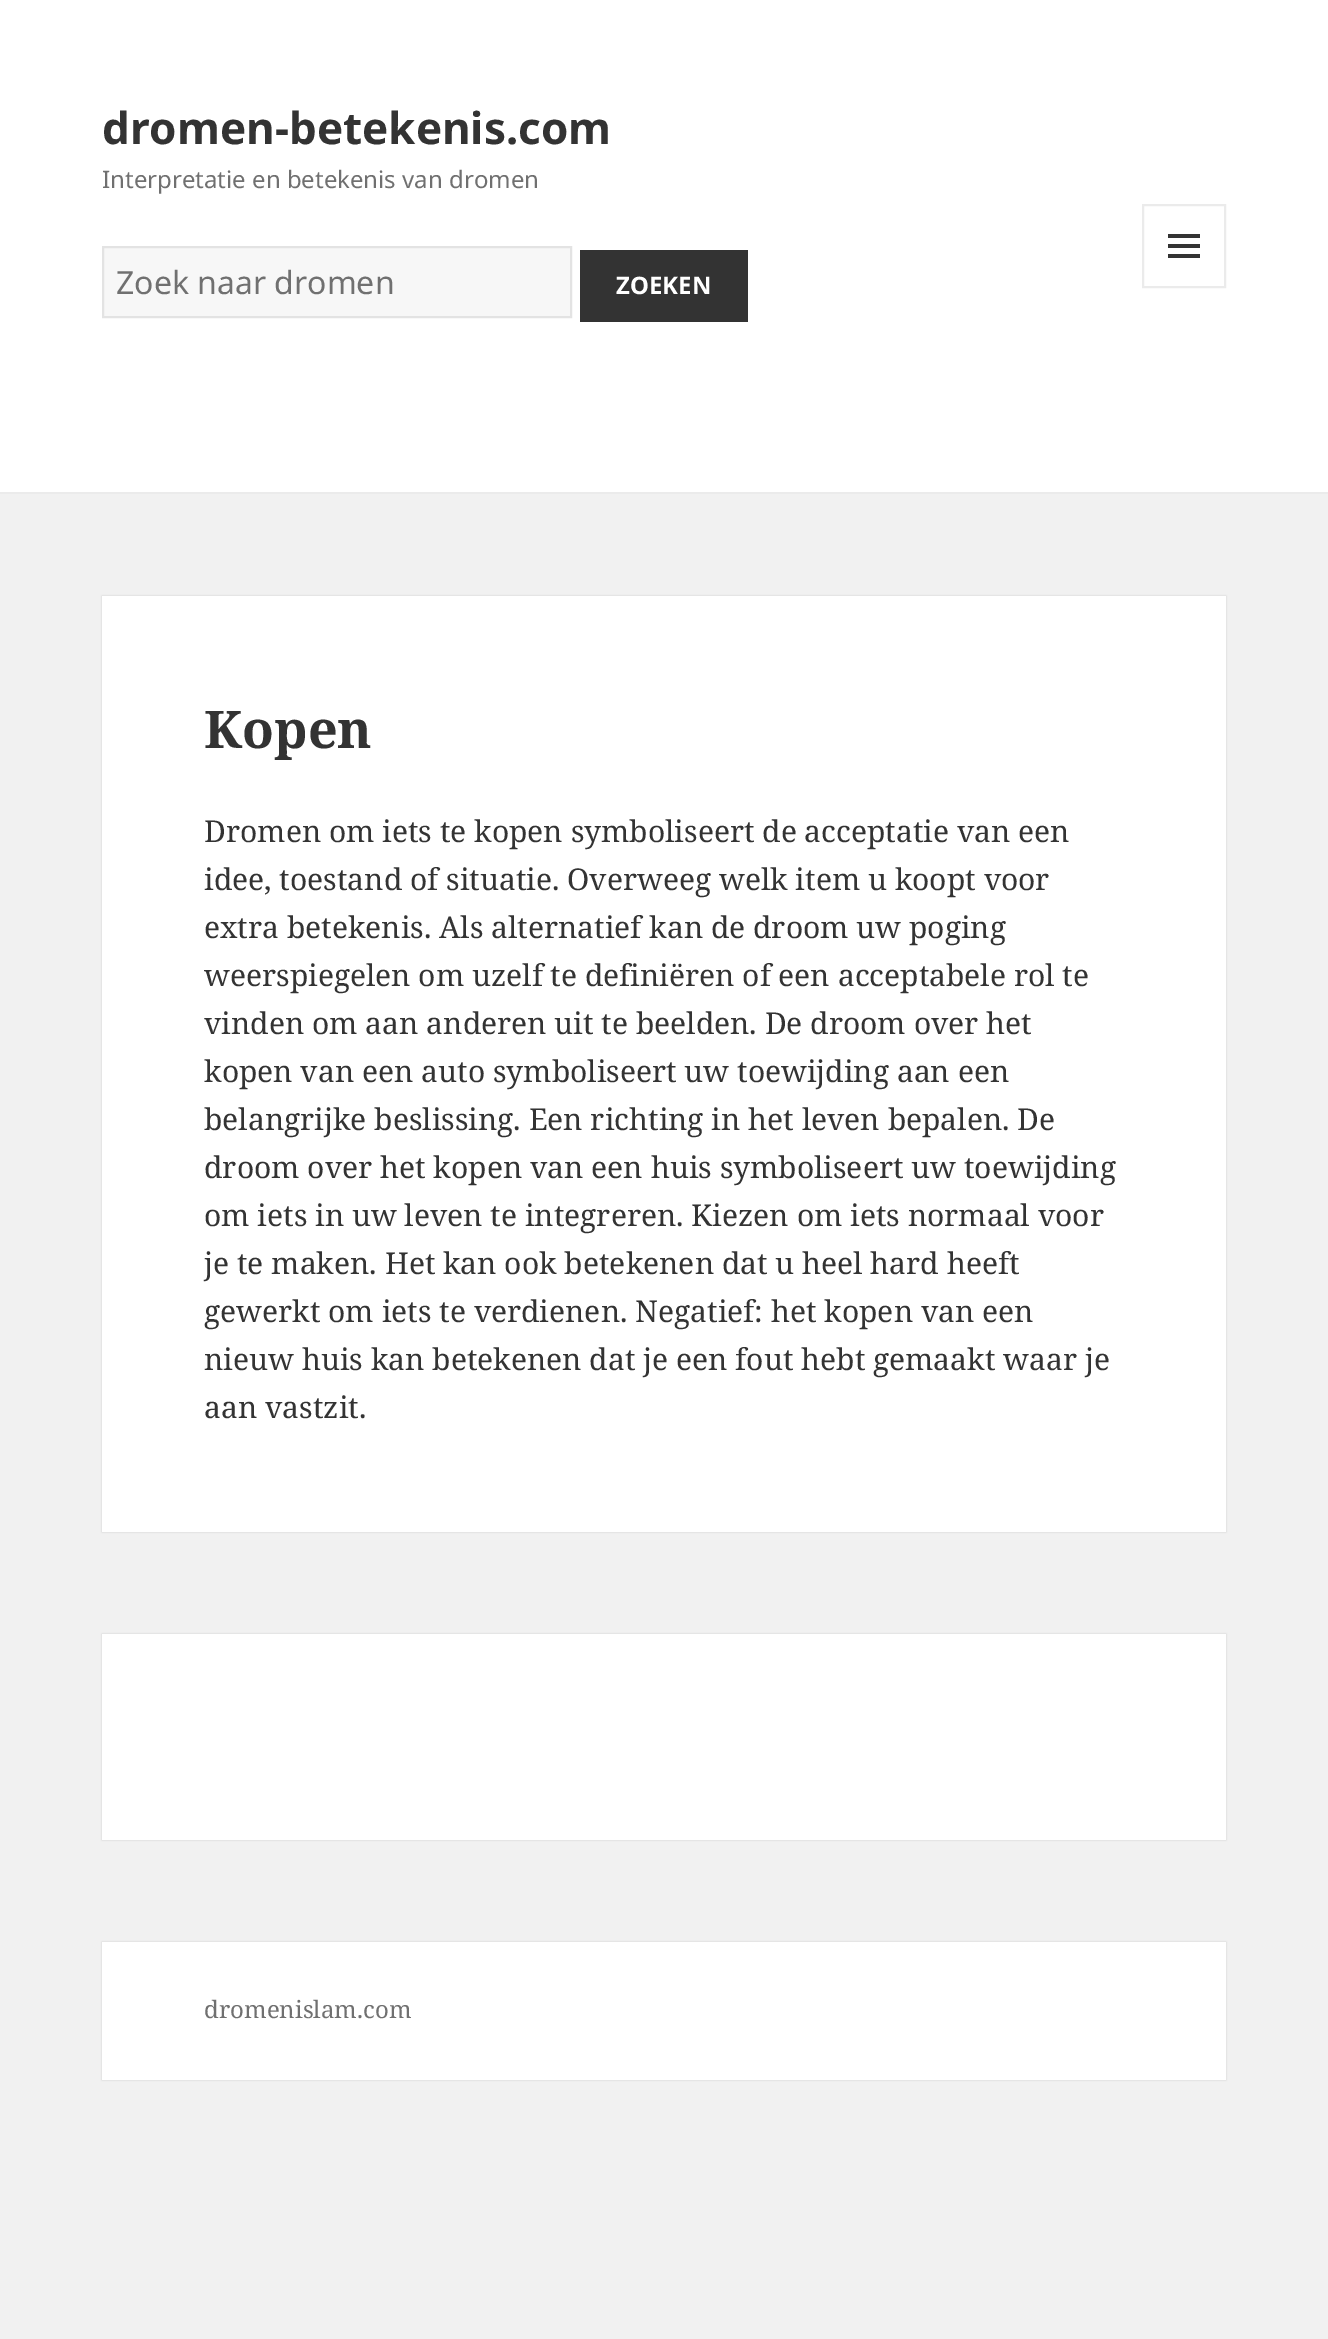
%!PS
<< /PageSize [1328 2339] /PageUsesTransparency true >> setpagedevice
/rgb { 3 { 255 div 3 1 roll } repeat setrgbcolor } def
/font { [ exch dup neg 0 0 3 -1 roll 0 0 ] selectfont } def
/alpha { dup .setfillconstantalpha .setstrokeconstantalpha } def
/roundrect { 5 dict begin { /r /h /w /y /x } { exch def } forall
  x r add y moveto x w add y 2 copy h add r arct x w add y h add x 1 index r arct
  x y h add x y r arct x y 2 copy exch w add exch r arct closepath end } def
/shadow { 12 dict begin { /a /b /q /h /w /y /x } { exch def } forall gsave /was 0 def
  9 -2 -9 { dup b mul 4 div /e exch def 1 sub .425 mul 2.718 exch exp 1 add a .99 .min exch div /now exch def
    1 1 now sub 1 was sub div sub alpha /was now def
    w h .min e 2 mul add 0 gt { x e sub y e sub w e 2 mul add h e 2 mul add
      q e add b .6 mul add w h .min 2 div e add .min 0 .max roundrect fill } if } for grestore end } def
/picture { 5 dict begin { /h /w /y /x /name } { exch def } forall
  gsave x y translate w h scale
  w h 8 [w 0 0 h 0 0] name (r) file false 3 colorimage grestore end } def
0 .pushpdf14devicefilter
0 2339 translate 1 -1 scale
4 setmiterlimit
241 241 241 rgb
0 0 1328 2339 rectfill
255 255 255 rgb
0 0 1328 492 rectfill
235 235 235 rgb
0 492 1328 2 rectfill
247 247 247 rgb
103 247 moveto 571 247 lineto 571 317 lineto 103 317 lineto closepath gsave fill grestore
227 227 227 rgb
2 setlinewidth
stroke
51 51 51 rgb
580 250 168 72 rectfill
235 235 235 rgb
1143 205 82 82 rectstroke
(img/1.rgb) 1168 234 32 24 picture
0 0 0 rgb
102 596 1124 936 0 1 0.15 shadow
255 255 255 rgb
102 596 1124 936 rectfill
0 0 0 rgb
102 1634 1124 206 0 1 0.15 shadow
255 255 255 rgb
102 1634 1124 206 rectfill
0 0 0 rgb
102 1942 1124 138 0 1 0.15 shadow
255 255 255 rgb
102 1942 1124 138 rectfill
/NotoSans-Bold 44 font
51 51 51 rgb
102 144 moveto (dromen-betekenis.com) show
/NotoSans-Regular 24 font
112 112 112 rgb
102 188 moveto (Interpretatie en betekenis van dromen) show
/NotoSans-Regular 32 font
116 294 moveto (Zoek naar dromen) show
/NotoSans-Bold 24 font
255 255 255 rgb
616 294 moveto (ZOEKEN) show
/NotoSerif-Bold 52 font
51 51 51 rgb
204 748 moveto (Kopen) show
/NotoSerif-Regular 30 font
[
  [(Dromen om iets te kopen symboliseert de acceptatie van een) 204 842]
  [(idee, toestand of situatie. Overweeg welk item u koopt voor) 204 890]
  [(extra betekenis. Als alternatief kan de droom uw poging) 204 938]
  [(weerspiegelen om uzelf te definiëren of een acceptabele rol te) 204 986]
  [(vinden om aan anderen uit te beelden. De droom over het) 204 1034]
  [(kopen van een auto symboliseert uw toewijding aan een) 204 1082]
  [(belangrijke beslissing. Een richting in het leven bepalen. De) 204 1130]
  [(droom over het kopen van een huis symboliseert uw toewijding) 204 1178]
  [(om iets in uw leven te integreren. Kiezen om iets normaal voor) 204 1226]
  [(je te maken. Het kan ook betekenen dat u heel hard heeft) 204 1274]
  [(gewerkt om iets te verdienen. Negatief: het kopen van een) 204 1322]
  [(nieuw huis kan betekenen dat je een fout hebt gemaakt waar je) 204 1370]
  [(aan vastzit.) 204 1418]
] { aload pop moveto show } forall
/NotoSerif-Regular 24 font
112 112 112 rgb
204 2018 moveto (dromenislam.com) show
.poppdf14devicefilter showpage
